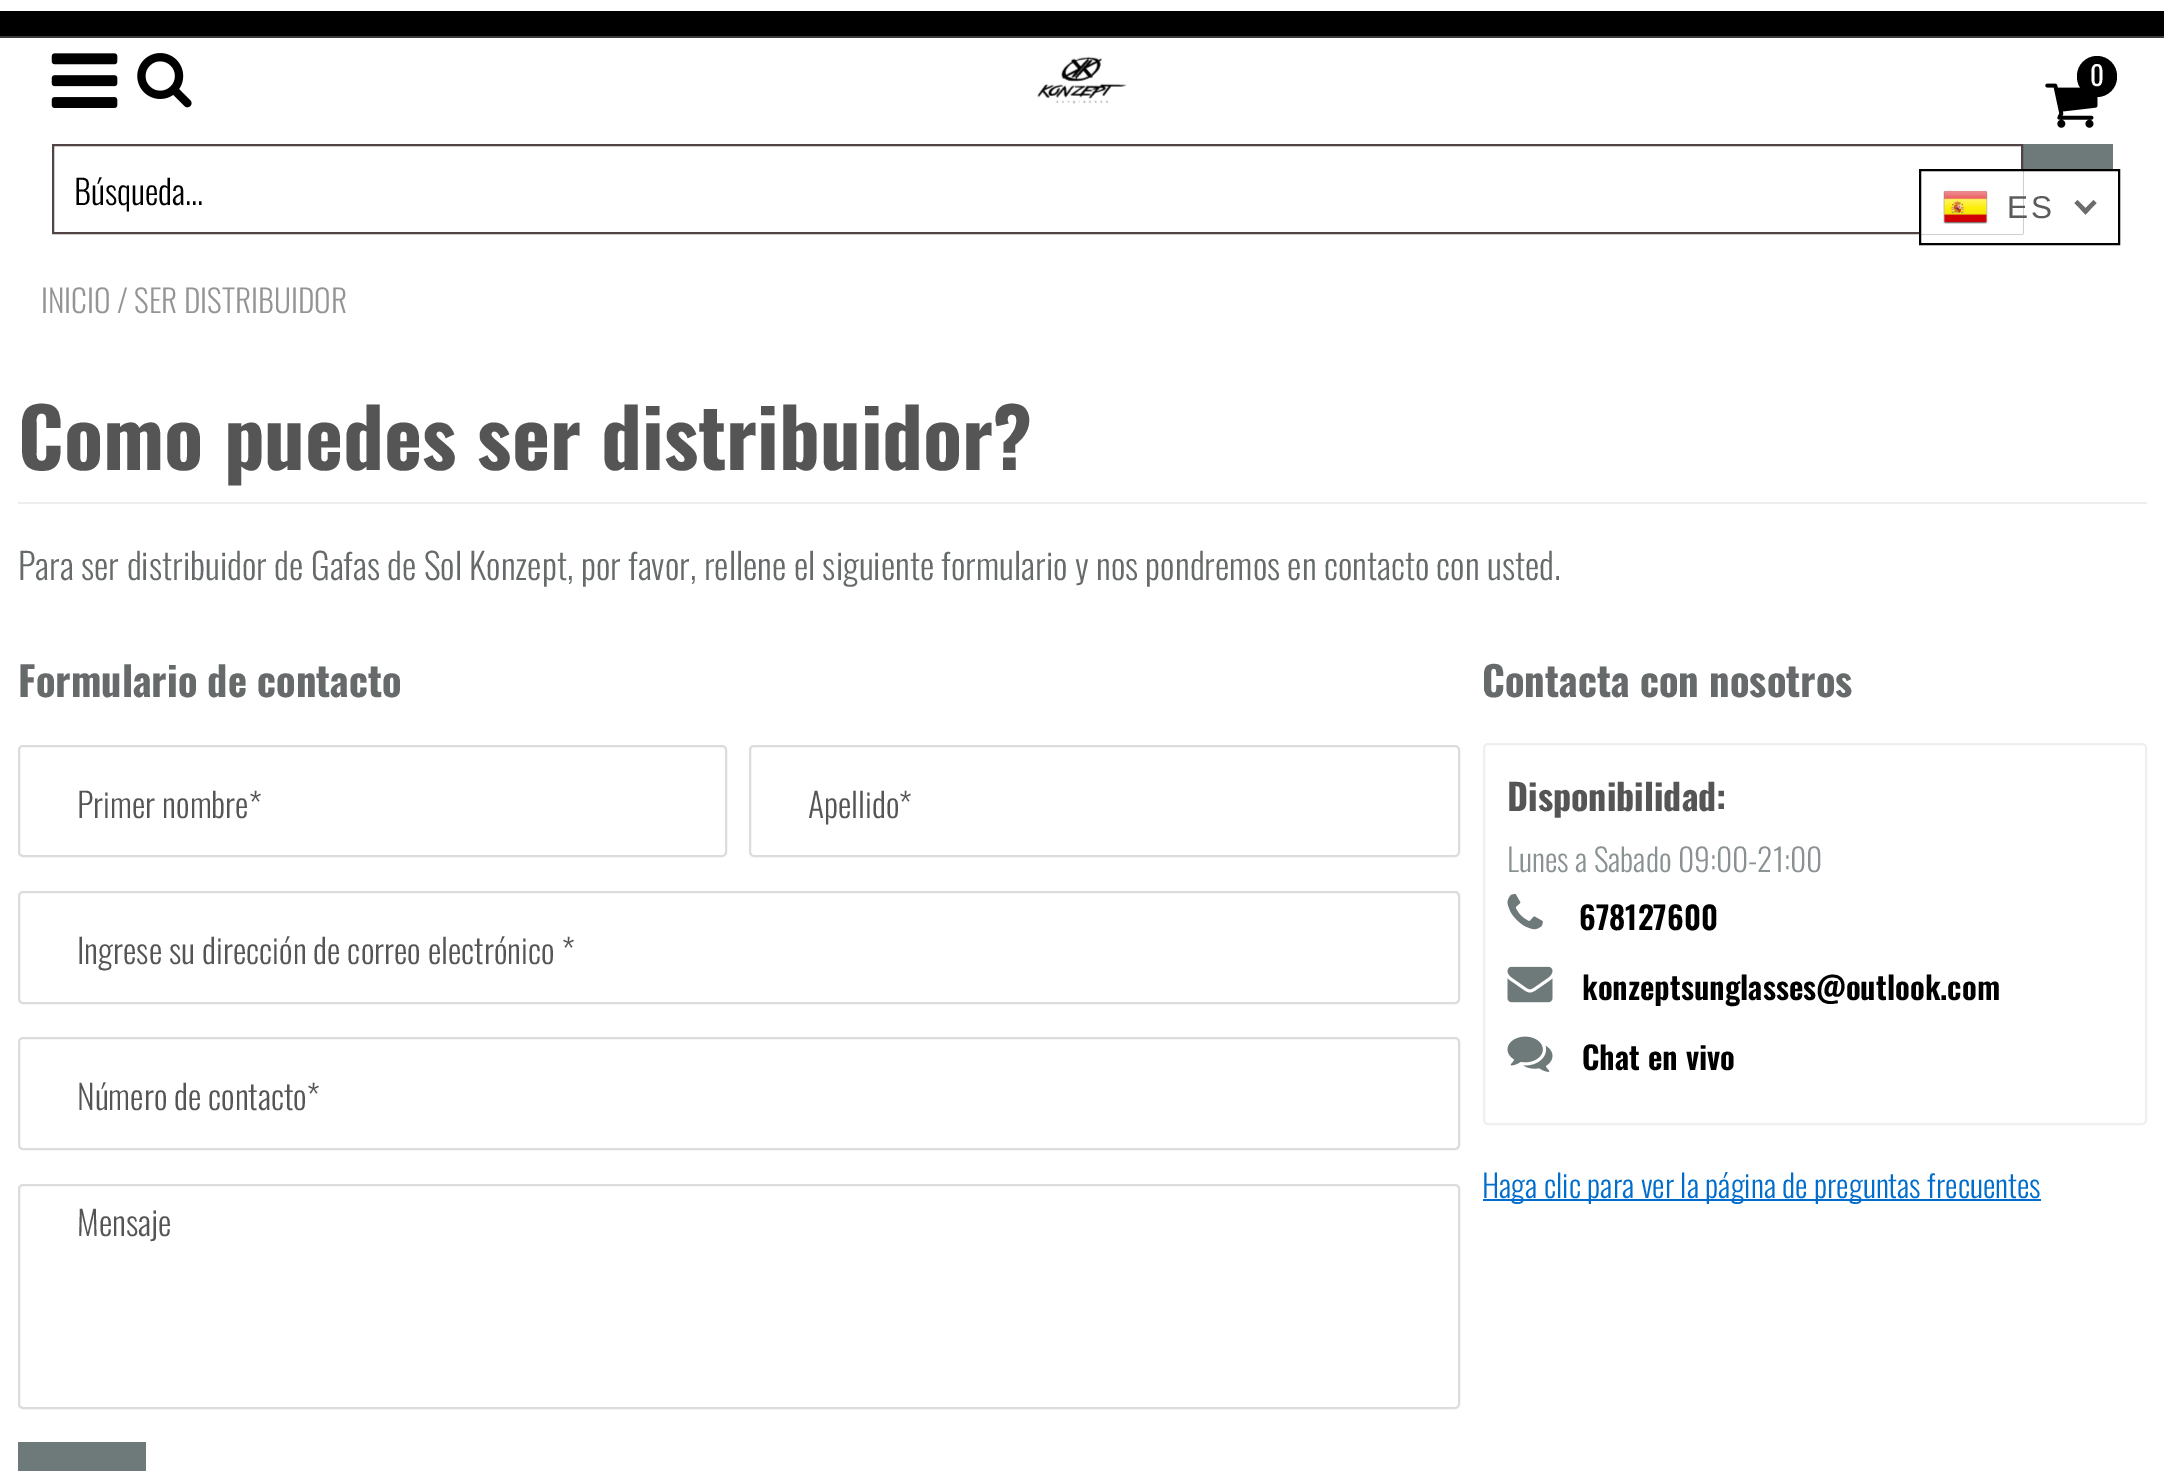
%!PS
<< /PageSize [2164 1471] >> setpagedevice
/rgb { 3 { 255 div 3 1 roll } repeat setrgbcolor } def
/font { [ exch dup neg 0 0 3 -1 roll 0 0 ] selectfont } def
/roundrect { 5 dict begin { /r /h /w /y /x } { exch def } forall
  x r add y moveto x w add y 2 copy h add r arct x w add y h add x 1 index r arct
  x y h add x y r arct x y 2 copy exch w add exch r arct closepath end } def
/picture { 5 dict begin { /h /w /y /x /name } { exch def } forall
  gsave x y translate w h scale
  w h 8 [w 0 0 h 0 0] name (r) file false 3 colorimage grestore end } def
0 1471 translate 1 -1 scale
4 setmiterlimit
255 255 255 rgb
0 0 2164 1471 rectfill
0 0 0 rgb
0 11 2164 25 rectfill
59 59 59 rgb
0 36 2164 2 rectfill
(img/1.rgb) 51 53 67 55 picture
(img/2.rgb) 137 53 55 55 picture
(img/3.rgb) 1037 56 89 48 picture
(img/4.rgb) 2045 83 53 45 picture
0 0 0 rgb
2077 56 40 41 20 roundrect fill
110 121 122 rgb
2023 144 90 25 rectfill
81 68 68 rgb
2 setlinewidth
53 145 1969 88 rectstroke
238 238 238 rgb
18 502 2129 2 rectfill
221 220 220 rgb
19 746 707 110 4 roundrect stroke
750 746 709 110 4 roundrect stroke
19 892 1440 111 4 roundrect stroke
19 1038 1440 111 4 roundrect stroke
19 1185 1440 223 4 roundrect stroke
110 121 122 rgb
18 1442 128 29 rectfill
239 239 239 rgb
1484 744 662 380 4 roundrect stroke
(img/5.rgb) 1507 893 36 37 picture
(img/6.rgb) 1507 966 46 37 picture
(img/7.rgb) 1507 1036 46 36 picture
0 109 204 rgb
1483 1199 558 2 rectfill
255 255 255 rgb
1921 171 102 63 rectfill
0 0 0 rgb
1920 170 199 74 rectstroke
(img/8.rgb) 1943 190 45 34 picture
108 108 108 rgb
2093.5 200 moveto 2096.5 203 lineto 2085.5 214.5 lineto 2082.5 211 lineto closepath fill
2077.5 200 moveto 2088.5 211 lineto 2085.5 214.5 lineto 2074.5 203 lineto closepath fill
/Oswald-Regular 27 font
255 255 255 rgb
2090 86 moveto (0) show
/Oswald-Light 33.75 font
0 0 0 rgb
74 205 moveto (Búsqueda...) show
/Oswald-Light 31.5 font
148 148 148 rgb
41 313 moveto (INICIO) show
117 313 moveto (/ SER DISTRIBUIDOR) show
/Oswald-Bold 81 font
85 85 85 rgb
18 470 moveto (Como puedes ser distribuidor?) show
/Oswald-Light 36 font
102 106 106 rgb
18 580 moveto (Para ser distribuidor de Gafas de Sol Konzept, por favor, rellene el siguiente formulario y nos pondremos en contacto con usted.) show
/Oswald-Bold 40.5 font
18 697 moveto (Formulario de contacto) show
/Oswald-Light 33.75 font
85 85 85 rgb
[
  [(Primer nombre*) 77 818]
  [(Apellido*) 808 818]
  [(Ingrese su dirección de correo electrónico *) 77 964]
  [(Número de contacto*) 77 1110]
  [(Mensaje) 77 1236]
] { aload pop moveto show } forall
/Oswald-Bold 40.5 font
102 106 106 rgb
1482 697 moveto (Contacta con nosotros) show
/Oswald-Bold 36 font
85 85 85 rgb
1507 811 moveto (Disponibilidad:) show
/Oswald-Light 31.5 font
137 145 146 rgb
1507 872 moveto (Lunes a Sabado 09:00-21:00) show
/Oswald-SemiBold 31.5 font
0 0 0 rgb
[
  [(678127600) 1579 930]
  [(konzeptsunglasses@outlook.com) 1582 1000]
  [(Chat en vivo) 1582 1070]
] { aload pop moveto show } forall
/Oswald-Light 31.5 font
0 109 204 rgb
1482 1198 moveto (Haga clic para ver la página de preguntas frecuentes) show
/LiberationSans-Regular 31.5 font
92 92 92 rgb
2007 218 moveto 3 0 (ES) ashow
showpage
